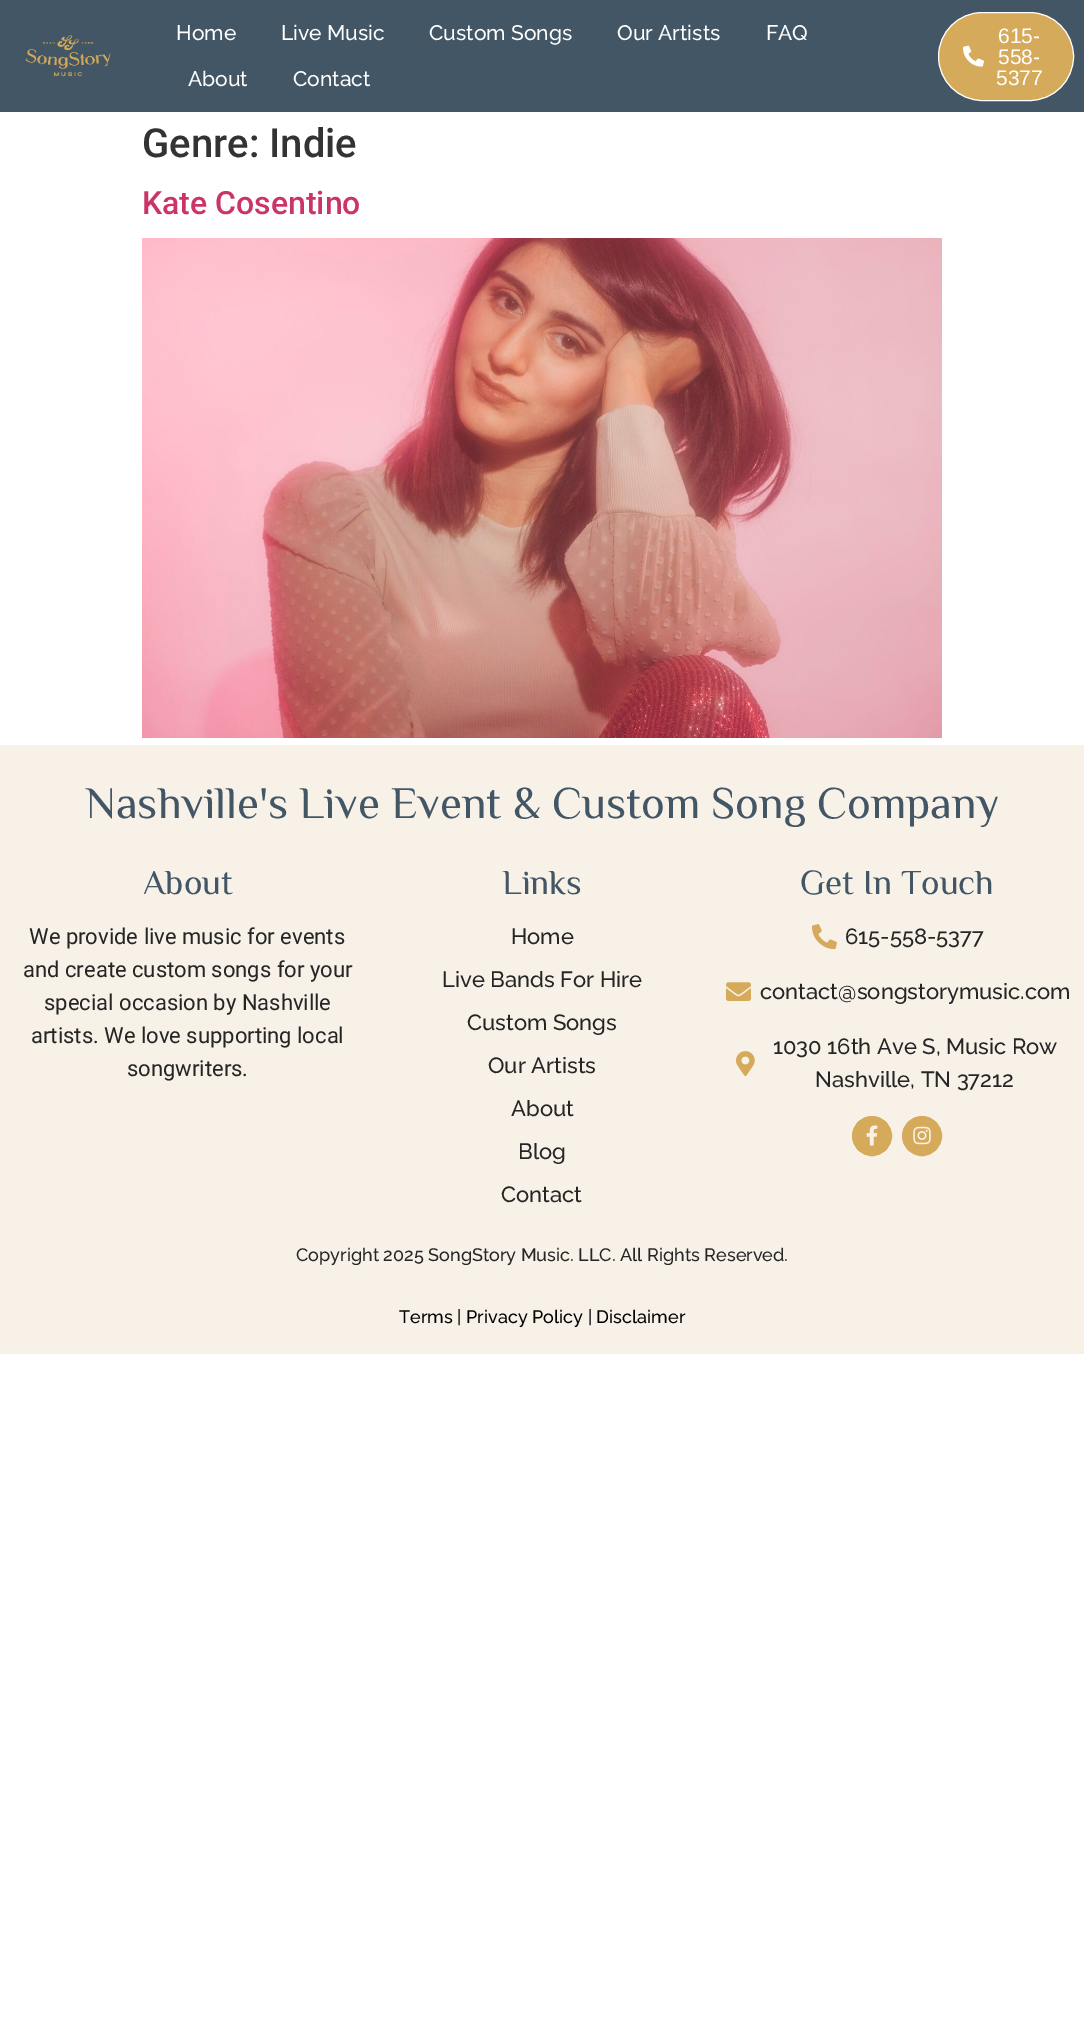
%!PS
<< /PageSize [1084 2039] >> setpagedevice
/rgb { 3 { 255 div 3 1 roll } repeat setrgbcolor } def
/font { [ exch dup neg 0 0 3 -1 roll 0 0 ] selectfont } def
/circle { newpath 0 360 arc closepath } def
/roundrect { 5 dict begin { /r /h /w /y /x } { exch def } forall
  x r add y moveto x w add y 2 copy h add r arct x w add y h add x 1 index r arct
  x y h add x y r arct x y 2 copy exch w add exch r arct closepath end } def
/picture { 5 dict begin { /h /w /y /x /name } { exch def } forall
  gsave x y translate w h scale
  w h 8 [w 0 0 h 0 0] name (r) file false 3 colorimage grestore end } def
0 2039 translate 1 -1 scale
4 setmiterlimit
255 255 255 rgb
0 0 1084 2039 rectfill
66 86 101 rgb
0 0 1084 112 rectfill
(img/1.rgb) 25 35 86 42 picture
214 170 91 rgb
938.5 12.5 135 88 44 roundrect gsave fill grestore
255 255 255 rgb
stroke
(img/2.rgb) 963 45 21 22 picture
(img/3.rgb) 142 238 800 500 picture
247 241 232 rgb
0 745 1084 609 rectfill
(img/4.rgb) 812 924 25 26 picture
(img/5.rgb) 726 982 25 19 picture
(img/6.rgb) 736 1051 19 26 picture
214 170 91 rgb
872 1136 19.5 circle gsave fill grestore
stroke
(img/7.rgb) 866 1125 12 21 picture
922 1136 19.5 circle gsave fill grestore
stroke
(img/8.rgb) 913 1126 18 19 picture
/Raleway-Medium 21 font
255 255 255 rgb
[
  [(Home) 176 40]
  [(Live Music) 281 40]
  [(Custom Songs) 429 40]
  [(Our Artists) 617 40]
  [(FAQ) 766 40]
  [(About) 188 86]
  [(Contact) 293 86]
] { aload pop moveto show } forall
/LiberationSans-Regular 21 font
[
  [(615-) 998 43]
  [(558-) 998 64]
  [(5377) 996 85]
] { aload pop moveto show } forall
/Roboto-Medium 40 font
51 51 51 rgb
142 157 moveto (Genre: Indie) show
/Roboto-Medium 32 font
204 51 102 rgb
142 214 moveto (Kate Cosentino) show
/Philosopher-Regular 45 font
66 86 101 rgb
85 818 moveto (Nashville's Live Event & Custom Song Company) show
/Philosopher-Regular 35 font
143 894 moveto (About) show
/Roboto-Regular 22 font
37 37 37 rgb
[
  [(We provide live music for events) 29 944]
  [(and create custom songs for your) 23 977]
  [(special occasion by Nashville) 44 1010]
  [(artists. We love supporting local) 31 1043]
  [(songwriters.) 127 1076]
] { aload pop moveto show } forall
/Philosopher-Regular 35 font
66 86 101 rgb
502 894 moveto (Links) show
/Raleway-Medium 22 font
37 37 37 rgb
[
  [(Home) 511 944]
  [(Live Bands For Hire) 442 987]
  [(Custom Songs) 467 1030]
  [(Our Artists) 488 1073]
  [(About) 511 1116]
  [(Blog) 518 1159]
  [(Contact) 501 1202]
] { aload pop moveto show } forall
/Philosopher-Regular 35 font
66 86 101 rgb
800 894 moveto (Get In Touch) show
/Raleway-Medium 22 font
37 37 37 rgb
[
  [(615-558-5377) 845 944]
  [(contact@songstorymusic.com) 760 999]
  [(1030 16th Ave S, Music Row) 773 1054]
  [(Nashville, TN 37212) 815 1087]
] { aload pop moveto show } forall
/Raleway-Medium 18 font
296 1261 moveto (Copyright 2025 SongStory Music. LLC. All Rights Reserved.) show
0 0 0 rgb
399 1323 moveto (Terms | Privacy Policy | Disclaimer) show
showpage
